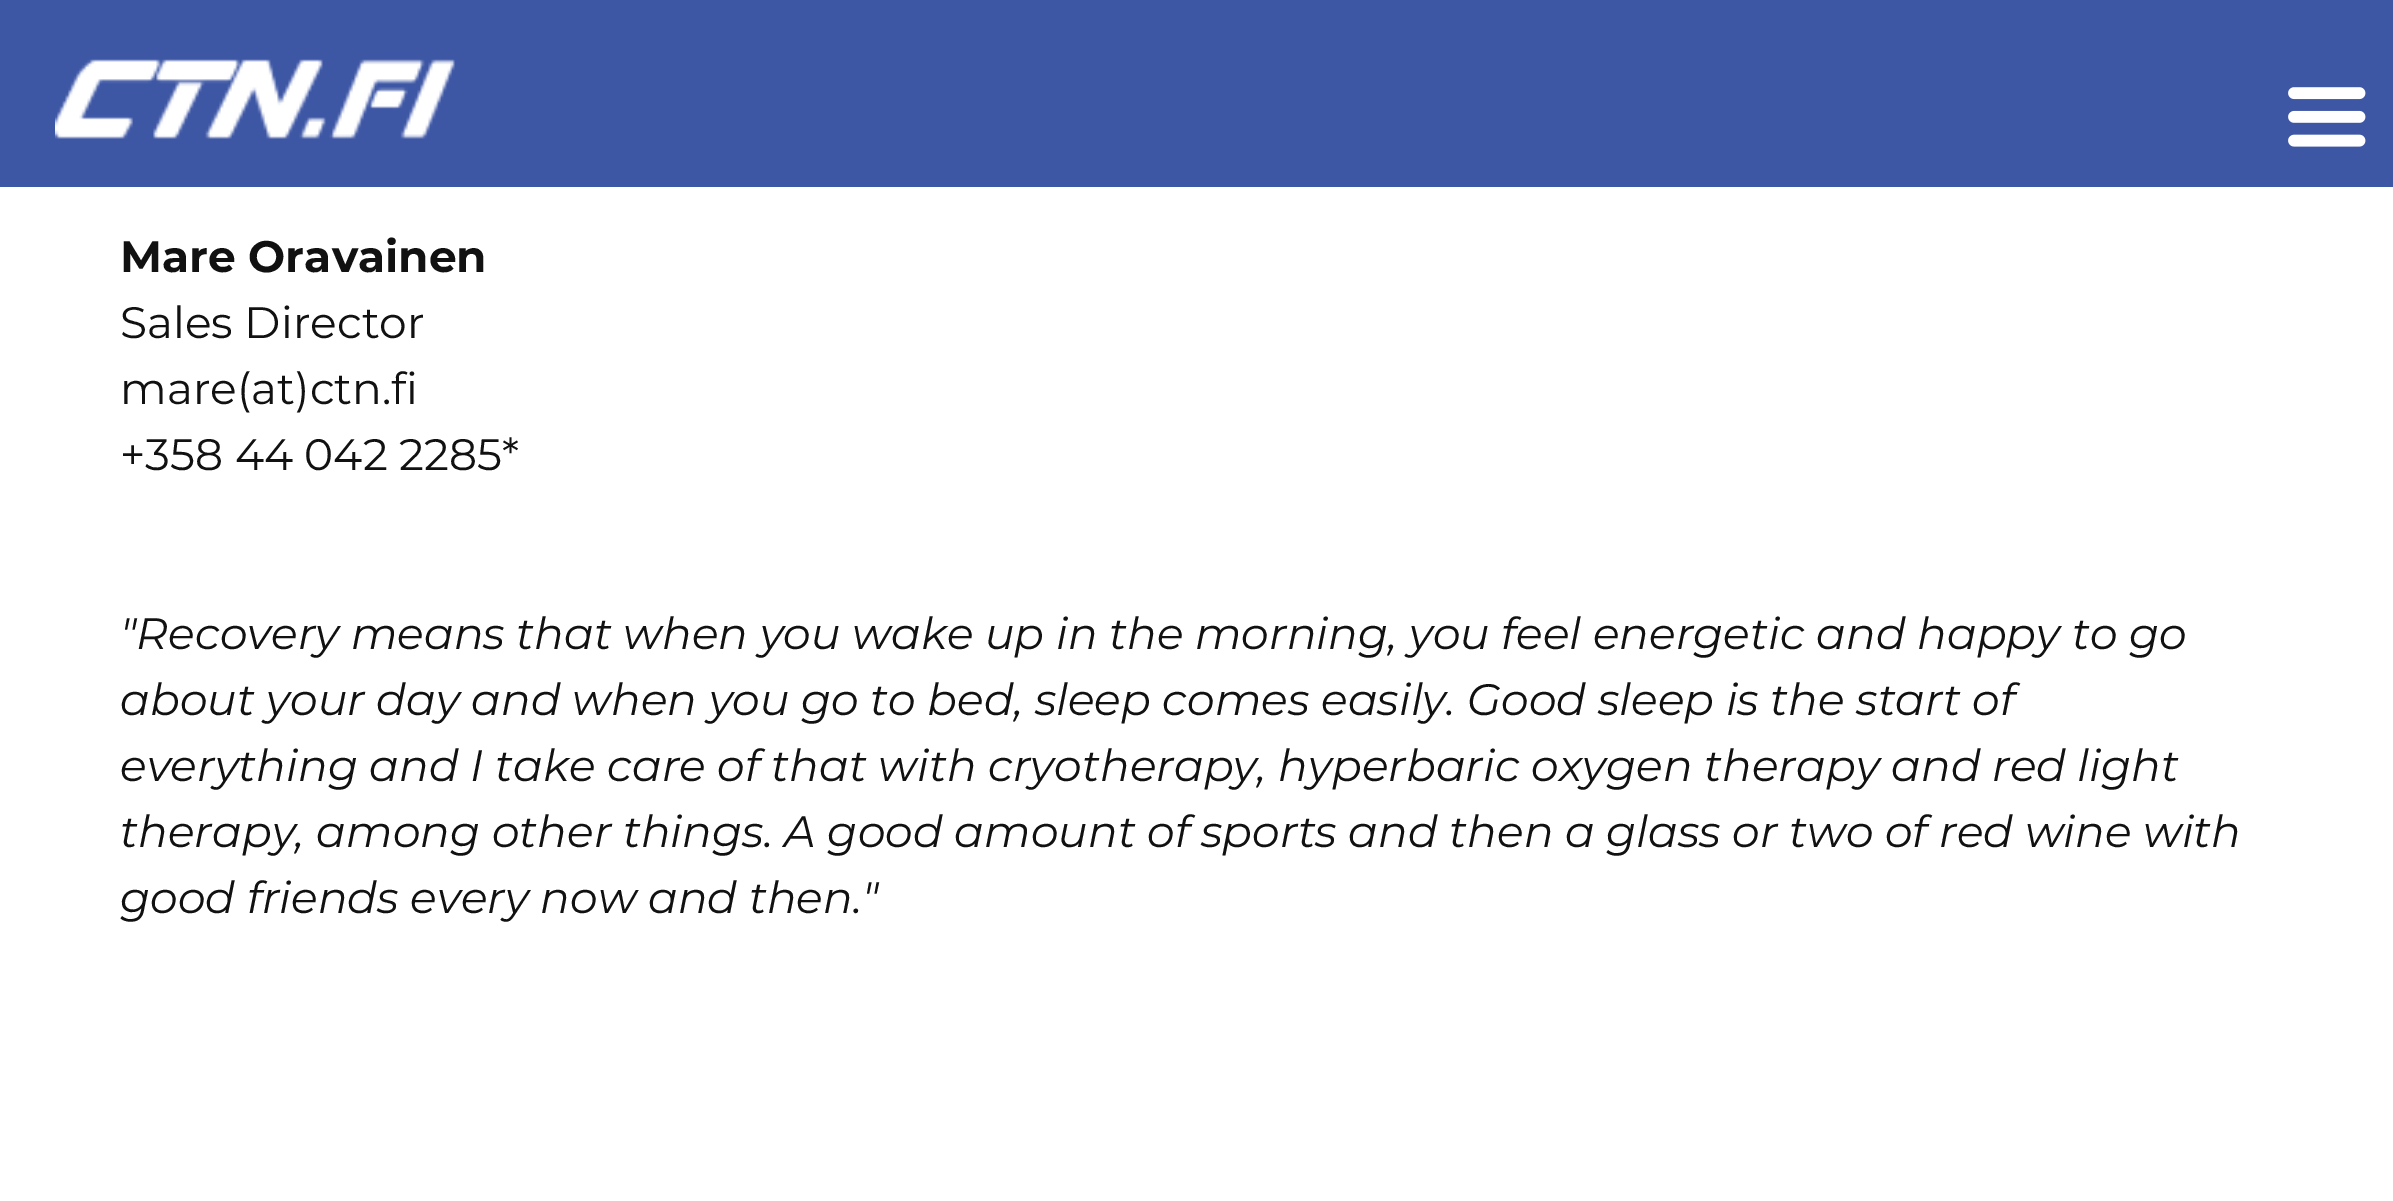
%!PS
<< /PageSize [2393 1201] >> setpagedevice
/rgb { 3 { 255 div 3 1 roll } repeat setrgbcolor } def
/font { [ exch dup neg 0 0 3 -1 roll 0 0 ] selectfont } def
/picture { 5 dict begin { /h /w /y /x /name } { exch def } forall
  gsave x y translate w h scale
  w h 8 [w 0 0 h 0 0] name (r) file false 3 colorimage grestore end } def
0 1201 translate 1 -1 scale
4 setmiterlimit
255 255 255 rgb
0 0 2393 1201 rectfill
62 87 165 rgb
0 0 2393 187 rectfill
(img/1.rgb) 55 59 400 80 picture
(img/2.rgb) 2288 87 78 60 picture
/Montserrat-Bold 44 font
17 17 17 rgb
120 272 moveto (Mare Oravainen) show
/Montserrat-Regular 44 font
[
  [(Sales Director) 120 338]
  [(mare\(at\)ctn.fi) 120 404]
  [(+358 44 042 2285*) 120 470]
] { aload pop moveto show } forall
/Montserrat-Italic 44 font
[
  [("Recovery means that when you wake up in the morning, you feel energetic and happy to go) 120 649]
  [(about your day and when you go to bed, sleep comes easily. Good sleep is the start of) 120 715]
  [(everything and I take care of that with cryotherapy, hyperbaric oxygen therapy and red light) 120 781]
  [(therapy, among other things. A good amount of sports and then a glass or two of red wine with) 120 847]
  [(good friends every now and then.") 120 913]
] { aload pop moveto show } forall
showpage
